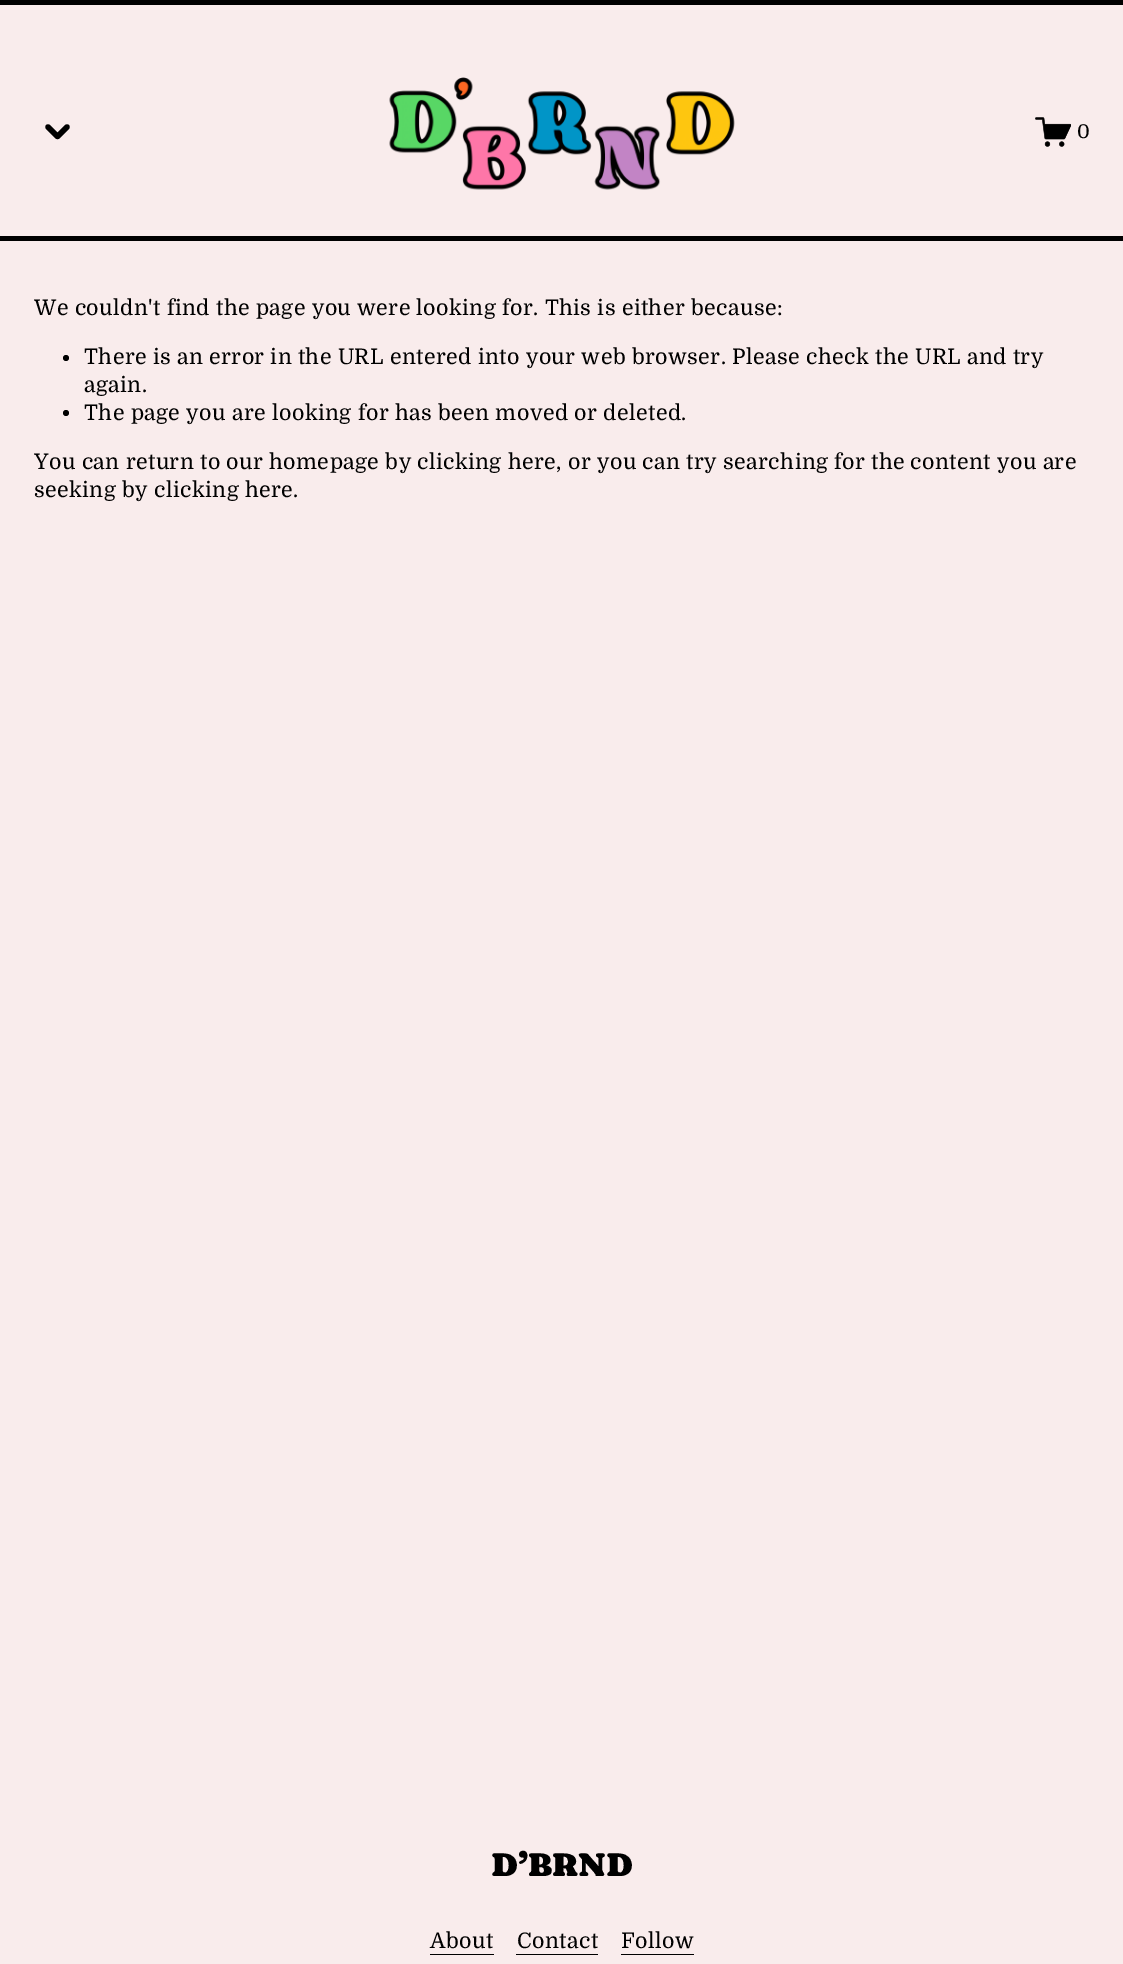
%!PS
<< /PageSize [1123 1964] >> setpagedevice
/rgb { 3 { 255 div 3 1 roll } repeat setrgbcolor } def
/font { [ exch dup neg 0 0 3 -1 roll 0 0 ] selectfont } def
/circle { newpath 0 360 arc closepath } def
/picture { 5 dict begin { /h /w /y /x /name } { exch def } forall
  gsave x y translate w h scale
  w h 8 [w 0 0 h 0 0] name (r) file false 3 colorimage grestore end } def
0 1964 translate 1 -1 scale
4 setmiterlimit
249 236 236 rgb
0 0 1123 1964 rectfill
0 0 0 rgb
0 0 1123 5 rectfill
0 236 1123 5 rectfill
5.4 setlinewidth
1 setlinecap
1 setlinejoin
67 127 moveto 57.5 136.5 lineto 48 127 lineto stroke
(img/1.rgb) 389 77 346 113 picture
(img/2.rgb) 1035 117 36 30 picture
66 358 3 circle fill
66 413 3 circle fill
[
  [430 1954 64 1 0 0 0]
  [516 1954 82 1 0 0 0]
  [621 1954 73 1 0 0 0]
] { aload pop rgb rectfill } forall
/Domine-Regular 19 font
1077 138 moveto (0) show
/Domine-Regular 21.35 font
34 315 moveto 0.43 0 (We couldn't find the page you were looking for. This is either because:) ashow
84 364 moveto 0.43 0 (There is an error in the URL entered into your web browser. Please check the URL and try) ashow
84 392 moveto 0.43 0 (again.) ashow
84 420 moveto 0.43 0 (The page you are looking for has been moved or deleted.) ashow
34 469 moveto 0.43 0 (You can return to our homepage by) ashow
417 469 moveto 0.43 0 (clicking here, or you can try searching for the) ashow
910 469 moveto 0.43 0 (content you are) ashow
34 497 moveto 0.43 0 (seeking by clicking here.) ashow
/Caprasimo-Regular 33.5 font
491 1876 moveto (D’BRND) show
/Domine-Regular 21.35 font
430 1948 moveto 0.43 0 (About) ashow
517 1948 moveto 0.43 0 (Contact) ashow
621 1948 moveto 0.43 0 (Follow) ashow
showpage
